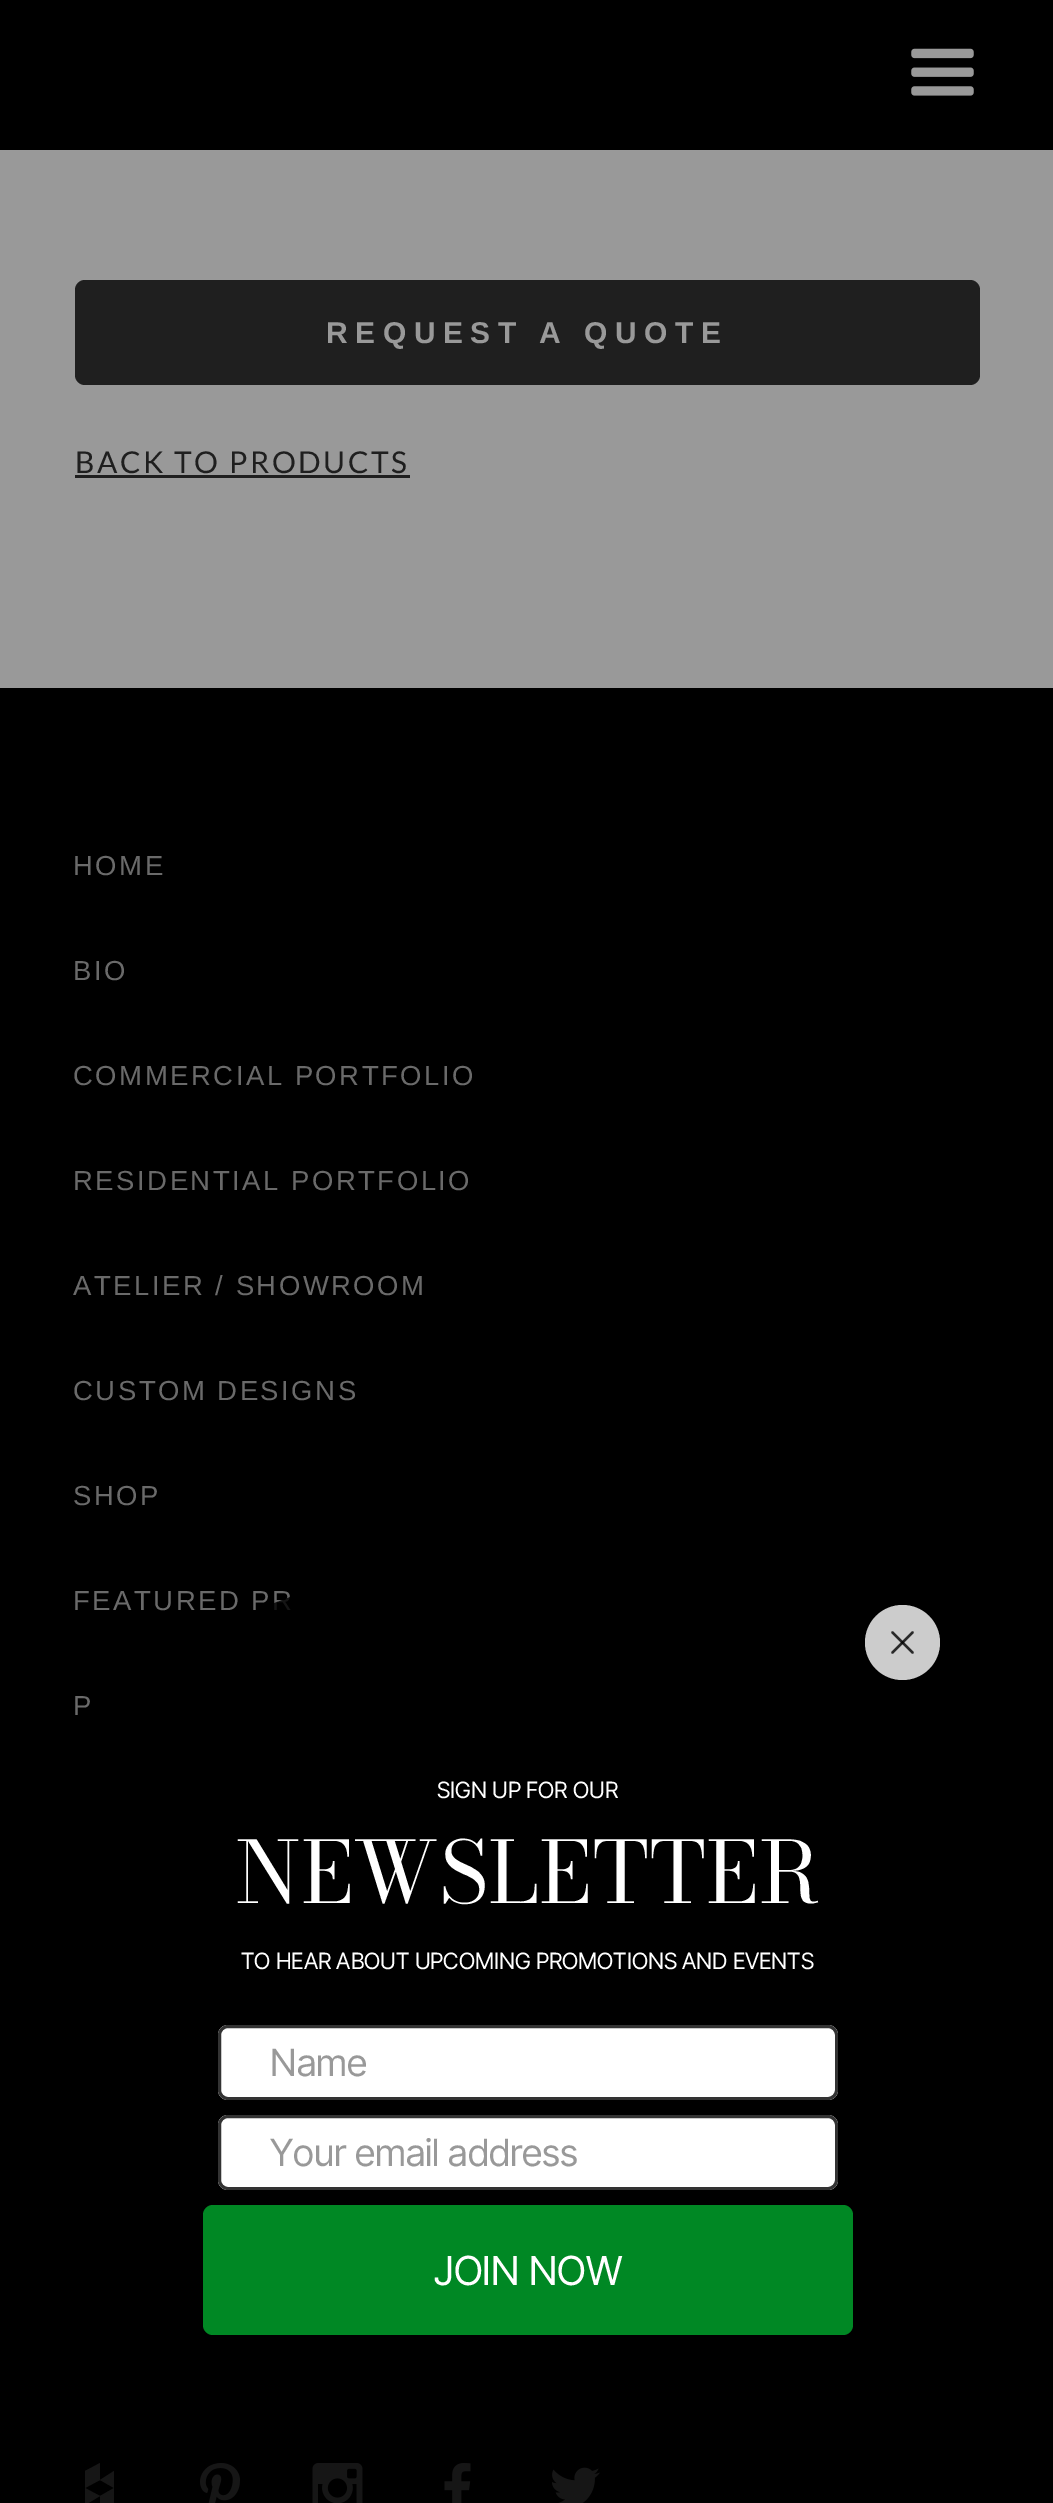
%!PS
<< /PageSize [1053 2503] /PageUsesTransparency true >> setpagedevice
/rgb { 3 { 255 div 3 1 roll } repeat setrgbcolor } def
/font { [ exch dup neg 0 0 3 -1 roll 0 0 ] selectfont } def
/alpha { dup .setfillconstantalpha .setstrokeconstantalpha } def
/circle { newpath 0 360 arc closepath } def
/roundrect { 5 dict begin { /r /h /w /y /x } { exch def } forall
  x r add y moveto x w add y 2 copy h add r arct x w add y h add x 1 index r arct
  x y h add x y r arct x y 2 copy exch w add exch r arct closepath end } def
/picture { 5 dict begin { /h /w /y /x /name } { exch def } forall
  gsave x y translate w h scale
  w h 8 [w 0 0 h 0 0] name (r) file false 3 colorimage grestore end } def
0 .pushpdf14devicefilter
0 2503 translate 1 -1 scale
4 setmiterlimit
153 153 153 rgb
0 0 1053 2503 rectfill
0 0 0 rgb
0 0 1053 150 rectfill
(img/1.rgb) 911 48 63 48 picture
31 31 31 rgb
75 280 905 105 10 roundrect fill
75 475 335 3 rectfill
0 0 0 rgb
0 688 1053 1815 rectfill
110 110 110 rgb
85 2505 moveto 100 2496 lineto 85 2488 lineto closepath 85 2488 moveto 100 2480 lineto 114 2488 lineto 114 2471 lineto 100 2480 lineto 100 2463 lineto 85 2471 lineto closepath 100 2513 moveto 114 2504 lineto 114 2488 lineto 100 2496 lineto closepath fill
(img/2.rgb) 200 2463 40 40 picture
(img/3.rgb) 312 2463 51 40 picture
(img/4.rgb) 444 2463 27 40 picture
(img/5.rgb) 552 2467 48 36 picture
/LiberationSans-Bold 30 font
153 153 153 rgb
326 343 moveto 7.5 0 (REQUEST A QUOTE) ashow
/Lato-Regular 30 font
31 31 31 rgb
75 473 moveto 2.5 0 (BACK TO PRODUCTS) ashow
/LiberationSans-Regular 27.5 font
106 106 106 rgb
73 875 moveto 2.5 0 (HOME) ashow
73 980 moveto 2.5 0 (BIO) ashow
73 1085 moveto 2.5 0 (COMMERCIAL PORTFOLIO) ashow
73 1190 moveto 2.5 0 (RESIDENTIAL PORTFOLIO) ashow
73 1295 moveto 2.5 0 (ATELIER / SHOWROOM) ashow
73 1400 moveto 2.5 0 (CUSTOM DESIGNS) ashow
73 1505 moveto 2.5 0 (SHOP) ashow
73 1610 moveto 2.5 0 (FEATURED PR) ashow
73 1715 moveto 2.5 0 (P) ashow
0.8 alpha
0 0 0 rgb
527.5 2242.5 687.5 circle fill
1 alpha
204 204 204 rgb
902.5 1642.5 37.5 circle fill
41 41 41 rgb
2.4 setlinewidth
1 setlinecap
892.5 1632.5 moveto 912.5 1652.5 lineto stroke
0.8 alpha
0 0 0 rgb
912.5 1632.5 moveto 892.5 1652.5 lineto stroke
/InterTight-Regular 22.5 font
1 alpha
255 255 255 rgb
437 1798 moveto (SIGN UP FOR OUR) show
/BodoniModa-Regular 85 font
235 1903 moveto (NEWSLETTER) show
/InterTight-Regular 22.5 font
241 1969 moveto (TO HEAR ABOUT UPCOMING PROMOTIONS AND EVENTS) show
218 2025 620 75 10 roundrect fill
0.8 alpha
0 0 0 rgb
3 setlinewidth
0 setlinecap
219.5 2026.5 617 72 8.5 roundrect stroke
/InterTight-Regular 37.5 font
1 alpha
153 153 153 rgb
270 2076 moveto (Name) show
255 255 255 rgb
218 2115 620 75 10 roundrect fill
0.8 alpha
0 0 0 rgb
219.5 2116.5 617 72 8.5 roundrect stroke
1 alpha
153 153 153 rgb
270 2166 moveto (Your email address) show
0 136 36 rgb
203 2205 650 130 10 roundrect fill
/InterTight-Regular 40 font
255 255 255 rgb
434 2285 moveto (JOIN NOW) show
.poppdf14devicefilter showpage
